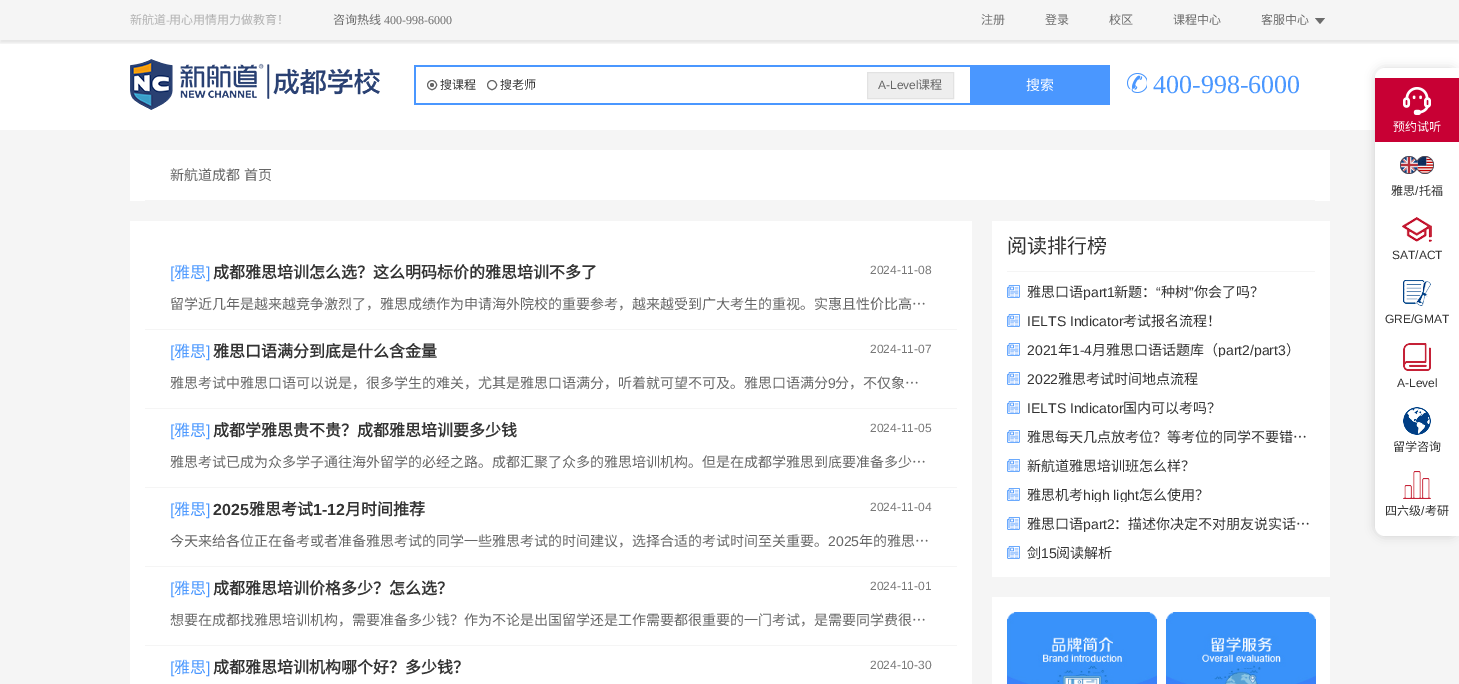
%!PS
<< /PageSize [1459 684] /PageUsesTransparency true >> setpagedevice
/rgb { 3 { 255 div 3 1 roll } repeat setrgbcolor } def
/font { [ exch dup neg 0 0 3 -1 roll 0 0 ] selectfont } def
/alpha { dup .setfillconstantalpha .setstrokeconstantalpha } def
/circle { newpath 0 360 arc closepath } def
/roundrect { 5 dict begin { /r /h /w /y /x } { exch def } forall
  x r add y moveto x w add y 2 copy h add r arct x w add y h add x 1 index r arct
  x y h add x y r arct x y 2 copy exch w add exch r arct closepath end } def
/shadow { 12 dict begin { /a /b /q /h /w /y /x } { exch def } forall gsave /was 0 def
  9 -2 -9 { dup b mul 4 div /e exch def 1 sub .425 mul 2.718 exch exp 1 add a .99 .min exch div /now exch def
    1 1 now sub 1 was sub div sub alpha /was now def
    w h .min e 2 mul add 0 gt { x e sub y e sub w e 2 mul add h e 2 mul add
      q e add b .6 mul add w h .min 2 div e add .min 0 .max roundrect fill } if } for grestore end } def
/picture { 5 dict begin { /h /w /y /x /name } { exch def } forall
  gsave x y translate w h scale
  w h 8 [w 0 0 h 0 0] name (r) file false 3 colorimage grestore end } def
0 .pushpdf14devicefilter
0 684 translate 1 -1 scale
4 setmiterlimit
245 245 245 rgb
0 0 1459 684 rectfill
255 255 255 rgb
0 40 1459 90 rectfill
gsave
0 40 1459 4 rectclip
0 0 0 rgb
0 3 1459 40 0 1.5 0.1 shadow
grestore
108 108 108 rgb
1315 18 moveto 1325 18 lineto 1320 24 lineto closepath fill
(img/1.rgb) 130 59 250 51 picture
74 151 255 rgb
414 65 696 40 rectfill
255 255 255 rgb
416 67 554 36 rectfill
102 102 102 rgb
432 85 4.5 circle stroke
432 85 2 circle fill
492 85 4.5 circle stroke
238 238 238 rgb
867.5 72.5 moveto 953.5 72.5 lineto 953.5 98.5 lineto 867.5 98.5 lineto closepath gsave fill grestore
226 226 226 rgb
stroke
(img/2.rgb) 1127 73 20 20 picture
[
  [130 150 1200 51 255 255 255]
  [145 200 1170 1 245 245 245]
  [130 221 842 463 255 255 255]
  [145 329 812 1 245 245 245]
  [145 408 812 1 245 245 245]
  [145 487 812 1 245 245 245]
  [145 566 812 1 245 245 245]
  [145 645 812 1 245 245 245]
  [992 221 338 356 255 255 255]
  [1007 271 308 1 245 245 245]
] { aload pop rgb rectfill } forall
(img/3.rgb) 1007 285 13 13 picture
(img/3.rgb) 1007 314 13 13 picture
(img/3.rgb) 1007 343 13 13 picture
(img/3.rgb) 1007 372 13 13 picture
(img/3.rgb) 1007 401 13 13 picture
(img/3.rgb) 1007 430 13 13 picture
(img/3.rgb) 1007 459 13 13 picture
(img/3.rgb) 1007 488 13 13 picture
(img/3.rgb) 1007 517 13 13 picture
(img/3.rgb) 1007 546 13 13 picture
255 255 255 rgb
992 597 338 87 rectfill
(img/4.rgb) 1007 612 150 72 picture
(img/5.rgb) 1166 612 150 72 picture
0 0 0 rgb
1375 68 84 468 10 5 0.15 shadow
255 255 255 rgb
1385 68 moveto 1459 68 lineto 1459 536 lineto 1385 536 lineto 1379.5 536 1375 531.5 1375 526 curveto 1375 78 lineto 1375 72.5 1379.5 68 1385 68 curveto closepath fill
200 0 52 rgb
1375 78 84 64 rectfill
(img/6.rgb) 1403 87 28 28 picture
(img/7.rgb) 1400 156 34 18 picture
(img/8.rgb) 1402 217 30 25 picture
(img/9.rgb) 1403 280 28 26 picture
(img/10.rgb) 1403 343 28 28 picture
(img/11.rgb) 1403 407 28 28 picture
(img/12.rgb) 1403 471 28 28 picture
/NotoSansCJKSC-Regular 12 font
177 177 177 rgb
130 24 moveto (新航道) show
/LiberationSerif-Regular 12 font
166 24 moveto (-) show
/NotoSansCJKSC-Regular 12 font
169 24 moveto (用心用情用力做教育！) show
108 108 108 rgb
333 24 moveto (咨询热线) show
/LiberationSerif-Regular 12 font
384 24 moveto (400-998-6000) show
/NotoSansCJKSC-Regular 12 font
[
  [(注册) 981 24]
  [(登录) 1045 24]
  [(校区) 1109 24]
  [(课程中心) 1173 24]
  [(客服中心) 1261 24]
] { aload pop moveto show } forall
51 51 51 rgb
440 89 moveto (搜课程) show
500 89 moveto (搜老师) show
/LiberationSans-Regular 12 font
102 102 102 rgb
878 89 moveto (A-Level) show
/NotoSansCJKSC-Regular 12 font
918 89 moveto (课程) show
/NotoSansCJKSC-Regular 14 font
255 255 255 rgb
1026 90 moveto (搜索) show
/LiberationSerif-Regular 26 font
74 151 255 rgb
1153 93 moveto (400-998-6000) show
/NotoSansCJKSC-Regular 14 font
102 102 102 rgb
170 180 moveto 1 0 32 (新航道成都 首页) widthshow
/LiberationSans-Regular 16 font
74 151 255 rgb
170 278 moveto ([) show
/NotoSansCJKSC-Regular 16 font
174 278 moveto (雅思) show
/LiberationSans-Regular 16 font
206 278 moveto (]) show
/NotoSansCJKSC-Bold 16 font
51 51 51 rgb
213 278 moveto (成都雅思培训怎么选？这么明码标价的雅思培训不多了) show
/LiberationSans-Regular 12 font
120 120 120 rgb
870 274 moveto (2024-11-08) show
/NotoSansCJKSC-Regular 14 font
102 102 102 rgb
170 309 moveto (留学近几年是越来越竞争激烈了，雅思成绩作为申请海外院校的重要参考，越来越受到广大考生的重视。实惠且性价比高…) show
/LiberationSans-Regular 16 font
74 151 255 rgb
170 357 moveto ([) show
/NotoSansCJKSC-Regular 16 font
174 357 moveto (雅思) show
/LiberationSans-Regular 16 font
206 357 moveto (]) show
/NotoSansCJKSC-Bold 16 font
51 51 51 rgb
213 357 moveto (雅思口语满分到底是什么含金量) show
/LiberationSans-Regular 12 font
120 120 120 rgb
870 353 moveto (2024-11-07) show
/NotoSansCJKSC-Regular 14 font
102 102 102 rgb
170 388 moveto (雅思考试中雅思口语可以说是，很多学生的难关，尤其是雅思口语满分，听着就可望不可及。雅思口语满分) show
/LiberationSans-Regular 14 font
828 388 moveto (9) show
/NotoSansCJKSC-Regular 14 font
835 388 moveto (分，不仅象…) show
/LiberationSans-Regular 16 font
74 151 255 rgb
170 436 moveto ([) show
/NotoSansCJKSC-Regular 16 font
174 436 moveto (雅思) show
/LiberationSans-Regular 16 font
206 436 moveto (]) show
/NotoSansCJKSC-Bold 16 font
51 51 51 rgb
213 436 moveto (成都学雅思贵不贵？成都雅思培训要多少钱) show
/LiberationSans-Regular 12 font
120 120 120 rgb
870 432 moveto (2024-11-05) show
/NotoSansCJKSC-Regular 14 font
102 102 102 rgb
170 467 moveto (雅思考试已成为众多学子通往海外留学的必经之路。成都汇聚了众多的雅思培训机构。但是在成都学雅思到底要准备多少…) show
/LiberationSans-Regular 16 font
74 151 255 rgb
170 515 moveto ([) show
/NotoSansCJKSC-Regular 16 font
174 515 moveto (雅思) show
/LiberationSans-Regular 16 font
206 515 moveto (]) show
/LiberationSans-Bold 16 font
51 51 51 rgb
213 515 moveto (2025) show
/NotoSansCJKSC-Bold 16 font
249 515 moveto (雅思考试) show
/LiberationSans-Bold 16 font
313 515 moveto (1-12) show
/NotoSansCJKSC-Bold 16 font
345 515 moveto (月时间推荐) show
/LiberationSans-Regular 12 font
120 120 120 rgb
870 511 moveto (2024-11-04) show
/NotoSansCJKSC-Regular 14 font
102 102 102 rgb
170 546 moveto (今天来给各位正在备考或者准备雅思考试的同学一些雅思考试的时间建议，选择合适的考试时间至关重要。) show
/LiberationSans-Regular 14 font
828 546 moveto (2025) show
/NotoSansCJKSC-Regular 14 font
859 546 moveto (年的雅思…) show
/LiberationSans-Regular 16 font
74 151 255 rgb
170 594 moveto ([) show
/NotoSansCJKSC-Regular 16 font
174 594 moveto (雅思) show
/LiberationSans-Regular 16 font
206 594 moveto (]) show
/NotoSansCJKSC-Bold 16 font
51 51 51 rgb
213 594 moveto (成都雅思培训价格多少？怎么选？) show
/LiberationSans-Regular 12 font
120 120 120 rgb
870 590 moveto (2024-11-01) show
/NotoSansCJKSC-Regular 14 font
102 102 102 rgb
170 625 moveto (想要在成都找雅思培训机构，需要准备多少钱？作为不论是出国留学还是工作需要都很重要的一门考试，是需要同学费很…) show
/LiberationSans-Regular 16 font
74 151 255 rgb
170 673 moveto ([) show
/NotoSansCJKSC-Regular 16 font
174 673 moveto (雅思) show
/LiberationSans-Regular 16 font
206 673 moveto (]) show
/NotoSansCJKSC-Bold 16 font
51 51 51 rgb
213 673 moveto (成都雅思培训机构哪个好？多少钱？) show
/LiberationSans-Regular 12 font
120 120 120 rgb
870 669 moveto (2024-10-30) show
/NotoSansCJKSC-Regular 20 font
51 51 51 rgb
1007 253 moveto (阅读排行榜) show
/NotoSansCJKSC-Regular 14 font
1027 297 moveto (雅思口语) show
/LiberationSans-Regular 14 font
1083 297 moveto (part1) show
/NotoSansCJKSC-Regular 14 font
1114 297 moveto (新题：) show
/LiberationSans-Regular 14 font
1156 297 moveto (“) show
/NotoSansCJKSC-Regular 14 font
1161 297 moveto (种树) show
/LiberationSans-Regular 14 font
1189 297 moveto (”) show
/NotoSansCJKSC-Regular 14 font
1194 297 moveto (你会了吗？) show
/LiberationSans-Regular 14 font
1027 326 moveto (IELTS Indicator) show
/NotoSansCJKSC-Regular 14 font
1123 326 moveto (考试报名流程！) show
/LiberationSans-Regular 14 font
1027 355 moveto (2021) show
/NotoSansCJKSC-Regular 14 font
1058 355 moveto (年) show
/LiberationSans-Regular 14 font
1072 355 moveto (1-4) show
/NotoSansCJKSC-Regular 14 font
1092 355 moveto (月雅思口语话题库（) show
gsave
1007 343 308 14 rectclip
/LiberationSans-Regular 14 font
1218 355 moveto (part2/part3) show
grestore
1286 355 moveto (）) show
/LiberationSans-Regular 14 font
1027 384 moveto (2022) show
/NotoSansCJKSC-Regular 14 font
1058 384 moveto (雅思考试时间地点流程) show
/LiberationSans-Regular 14 font
1027 413 moveto (IELTS Indicator) show
/NotoSansCJKSC-Regular 14 font
[
  [(国内可以考吗？) 1123 413]
  [(雅思每天几点放考位？等考位的同学不要错…) 1027 442]
  [(新航道雅思培训班怎么样？) 1027 471]
  [(雅思机考) 1027 500]
] { aload pop moveto show } forall
gsave
1007 488 308 14 rectclip
/LiberationSans-Regular 14 font
1083 500 moveto (high light) show
grestore
1139 500 moveto (怎么使用？) show
1027 529 moveto (雅思口语) show
/LiberationSans-Regular 14 font
1083 529 moveto (part2) show
/NotoSansCJKSC-Regular 14 font
1114 529 moveto (：描述你决定不对朋友说实话…) show
1027 558 moveto (剑) show
/LiberationSans-Regular 14 font
1041 558 moveto (15) show
/NotoSansCJKSC-Regular 14 font
1056 558 moveto (阅读解析) show
/NotoSansCJKSC-Regular 12 font
255 255 255 rgb
1393 131 moveto (预约试听) show
51 51 51 rgb
1391 195 moveto (雅思) show
/LiberationSans-Regular 12 font
1415 195 moveto (/) show
/NotoSansCJKSC-Regular 12 font
1419 195 moveto (托福) show
/LiberationSans-Regular 12 font
[
  [(SAT/ACT) 1392 259]
  [(GRE/GMAT) 1385 323]
  [(A-Level) 1397 387]
] { aload pop moveto show } forall
/NotoSansCJKSC-Regular 12 font
1393 451 moveto (留学咨询) show
1385 515 moveto (四六级) show
/LiberationSans-Regular 12 font
1421 515 moveto (/) show
/NotoSansCJKSC-Regular 12 font
1425 515 moveto (考研) show
.poppdf14devicefilter showpage
